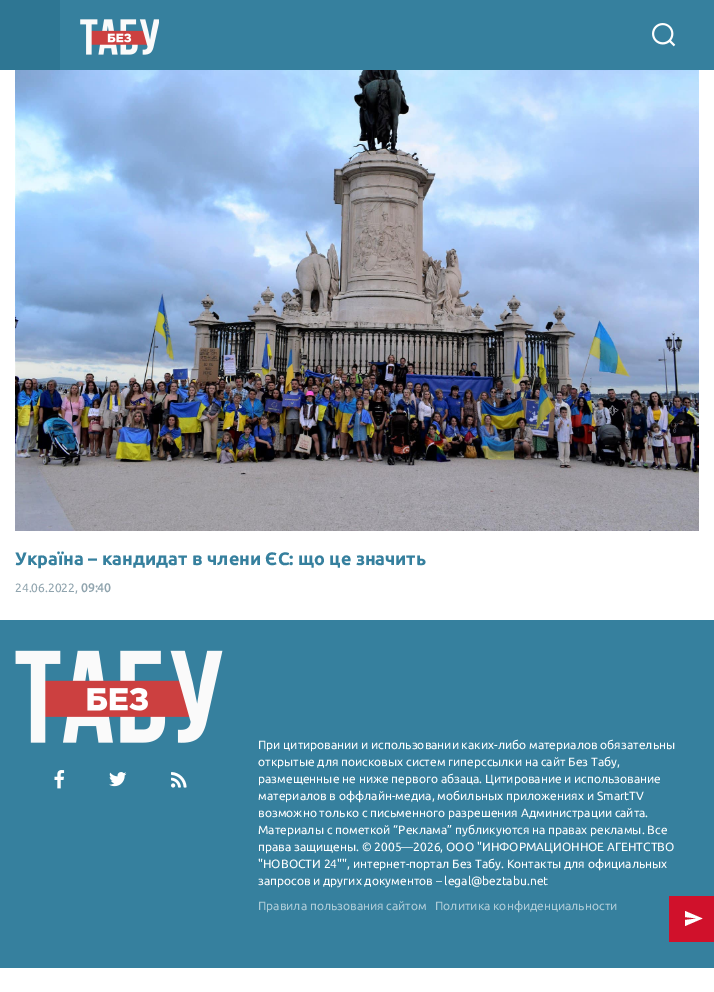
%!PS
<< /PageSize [714 992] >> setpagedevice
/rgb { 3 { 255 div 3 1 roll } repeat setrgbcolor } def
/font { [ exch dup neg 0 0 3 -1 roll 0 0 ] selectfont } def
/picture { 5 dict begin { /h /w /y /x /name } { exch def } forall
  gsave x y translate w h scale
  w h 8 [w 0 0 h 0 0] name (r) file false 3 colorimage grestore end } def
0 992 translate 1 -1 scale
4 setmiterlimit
255 255 255 rgb
0 0 714 992 rectfill
54 128 158 rgb
60 0 654 70 rectfill
46 118 147 rgb
0 0 60 70 rectfill
(img/1.rgb) 80 19 79 36 picture
(img/2.rgb) 652 23 24 24 picture
(img/3.rgb) 15 70 684 461 picture
54 128 158 rgb
0 620 714 348 rectfill
(img/4.rgb) 15 650 208 93 picture
(img/5.rgb) 54 770 11 19 picture
(img/6.rgb) 109 772 18 15 picture
(img/7.rgb) 171 772 16 16 picture
208 17 43 rgb
669 896 45 46 rectfill
255 255 255 rgb
685 926 moveto 685 920 lineto 697.5 918.5 lineto 685 917 lineto 685 911 lineto 702.5 918.5 lineto closepath eofill
/Ubuntu-Bold 18 font
54 128 158 rgb
15 565 moveto (Україна – кандидат в члени ЄС: що це значить) show
/Ubuntu-Regular 12 font
144 164 174 rgb
15 592 moveto (24.06.2022,) show
/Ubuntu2-Bold 12 font
81 592 moveto (09:40) show
/Ubuntu-Regular 12 font
254 254 254 rgb
[
  [(При цитировании и использовании каких-либо материалов обязательны) 258 749]
  [(открытые для поисковых систем гиперссылки на сайт Без Табу,) 258 766]
  [(размещенные не ниже первого абзаца. Цитирование и использование) 258 783]
  [(материалов в оффлайн-медиа, мобильных приложениях и SmartTV) 258 800]
  [(возможно только с письменного разрешения Администрации сайта.) 258 817]
  [(Материалы с пометкой “Реклама” публикуются на правах рекламы. Все) 258 834]
  [(права защищены. © 2005—2026, ООО "ИНФОРМАЦИОННОЕ АГЕНТСТВО) 258 851]
  [("НОВОСТИ 24"", интернет-портал Без Табу. Контакты для официальных) 258 868]
  [(запросов и других документов – legal@beztabu.net) 258 885]
] { aload pop moveto show } forall
174 204 216 rgb
258 910 moveto (Правила пользования сайтом) show
435 910 moveto (Политика конфиденциальности) show
showpage
